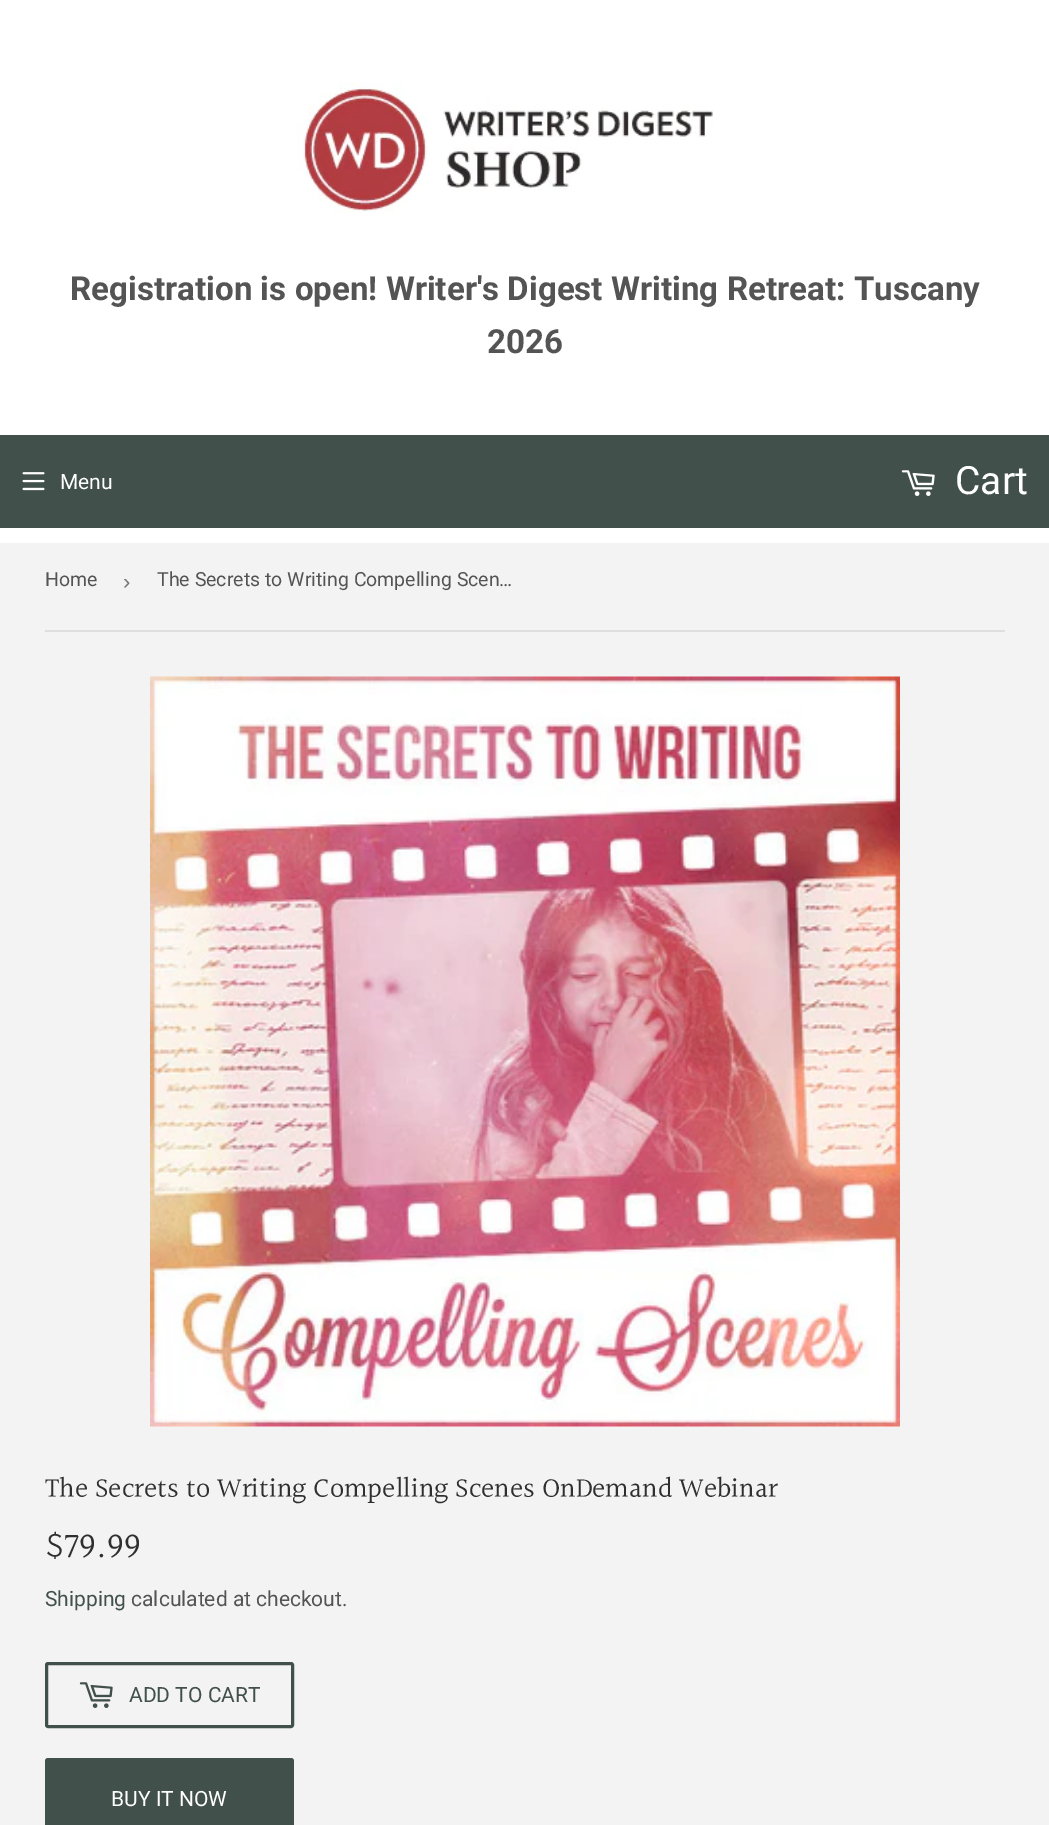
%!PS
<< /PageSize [1049 1825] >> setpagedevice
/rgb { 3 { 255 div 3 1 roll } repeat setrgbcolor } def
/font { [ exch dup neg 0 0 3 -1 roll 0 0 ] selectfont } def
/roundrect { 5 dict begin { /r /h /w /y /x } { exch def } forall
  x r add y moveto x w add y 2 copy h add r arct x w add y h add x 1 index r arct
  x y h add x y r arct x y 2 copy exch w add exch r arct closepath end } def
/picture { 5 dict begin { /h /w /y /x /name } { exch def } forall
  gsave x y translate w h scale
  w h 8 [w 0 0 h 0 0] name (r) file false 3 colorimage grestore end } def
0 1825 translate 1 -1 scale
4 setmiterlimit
243 243 243 rgb
0 0 1049 1825 rectfill
255 255 255 rgb
0 0 1049 543 rectfill
(img/1.rgb) 297 82 416 131 picture
66 80 75 rgb
0 435 1049 93 rectfill
(img/2.rgb) 22 472 23 19 picture
(img/3.rgb) 901 470 34 26 picture
222 222 222 rgb
45 630 960 2 rectfill
(img/4.rgb) 150 676 750 751 picture
66 80 75 rgb
3 setlinewidth
46.5 1663.5 246 63 1.5 roundrect stroke
(img/5.rgb) 79 1682 34 26 picture
45 1758 249 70 3 roundrect fill
/Roboto-Bold 33.15 font
84 84 84 rgb
70 300 moveto (Registration is open! Writer's Digest Writing Retreat: Tuscany) show
487 353 moveto (2026) show
/Roboto-Regular 21 font
255 255 255 rgb
60 489 moveto (Menu) show
/Roboto-Regular 39 font
955 494 moveto (Cart) show
/Roboto-Regular 19.5 font
84 84 84 rgb
45 586 moveto (Home) show
/LiberationSans-Regular 22 font
118 118 118 rgb
123 589 moveto (›) show
/Roboto-Regular 19.5 font
84 84 84 rgb
157 586 moveto (The Secrets to Writing Compelling Scen…) show
/Halant-Regular 28 font
47 47 47 rgb
45 1498 moveto (The Secrets to Writing Compelling Scenes OnDemand Webinar) show
/Halant-Regular 36.5 font
45 1559 moveto ($79.99) show
/Roboto-Regular 21 font
66 80 75 rgb
45 1606 moveto (Shipping) show
84 84 84 rgb
131 1606 moveto (calculated at checkout.) show
66 80 75 rgb
129 1702 moveto (ADD TO CART) show
255 255 255 rgb
111 1806 moveto (BUY IT NOW) show
showpage
